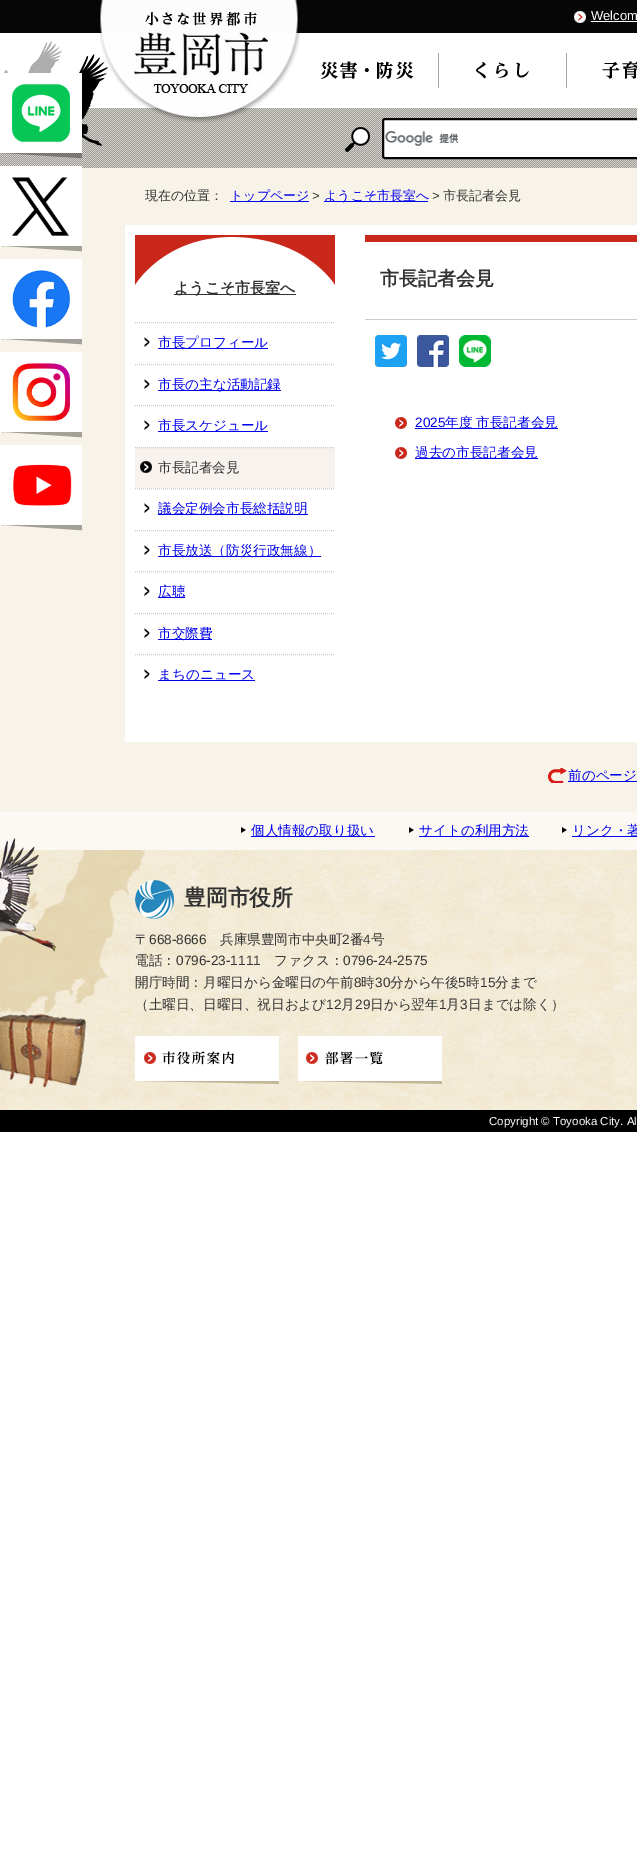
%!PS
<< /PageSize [637 1852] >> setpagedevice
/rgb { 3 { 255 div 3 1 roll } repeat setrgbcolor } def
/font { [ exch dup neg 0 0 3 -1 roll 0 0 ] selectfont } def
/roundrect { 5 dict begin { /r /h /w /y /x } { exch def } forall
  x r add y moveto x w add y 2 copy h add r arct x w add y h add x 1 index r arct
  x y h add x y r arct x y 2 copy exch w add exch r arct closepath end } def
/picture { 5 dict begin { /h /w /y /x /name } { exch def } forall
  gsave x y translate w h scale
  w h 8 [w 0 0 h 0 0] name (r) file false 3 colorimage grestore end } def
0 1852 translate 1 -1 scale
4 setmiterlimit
255 255 255 rgb
0 0 637 1852 rectfill
248 243 232 rgb
0 168 637 942 rectfill
6 6 6 rgb
0 0 637 33 rectfill
(img/8.rgb) 0 108 637 60 picture
(img/4.rgb) 4 41 104 105 picture
(img/1.rgb) 100 0 200 123 picture
(img/2.rgb) 134 12 134 81 picture
(img/3.rgb) 574 11 12 12 picture
255 255 255 rgb
591 21 46 1 rectfill
(img/5.rgb) 321 61 93 18 picture
166 166 166 rgb
438 53 1 35 rectfill
(img/6.rgb) 476 62 53 17 picture
566 53 1 35 rectfill
(img/7.rgb) 602 61 35 18 picture
(img/9.rgb) 345 127 25 25 picture
255 255 255 rgb
383 119 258 39 2 roundrect gsave fill grestore
6 6 6 rgb
2 setlinewidth
stroke
(img/10.rgb) 385 131 74 15 picture
(img/11.rgb) 2 153 80 6 picture
(img/12.rgb) 0 73 82 80 picture
(img/13.rgb) 2 246 80 6 picture
(img/14.rgb) 0 166 82 80 picture
(img/13.rgb) 2 339 80 6 picture
(img/15.rgb) 0 259 82 80 picture
(img/13.rgb) 2 432 80 6 picture
(img/16.rgb) 0 352 82 80 picture
(img/13.rgb) 2 525 80 6 picture
(img/17.rgb) 0 445 82 80 picture
[
  [230 201 79 1 0 0 238]
  [324 201 104 1 0 0 238]
  [125 225 512 517 255 255 255]
] { aload pop rgb rectfill } forall
(img/18.rgb) 135 235 200 50 picture
51 51 51 rgb
174 294 122 1 rectfill
(img/19.rgb) 144 337 6 10 picture
204 204 204 rgb
1 setlinewidth
[1 1] 0 setdash
135 322.5 moveto 335 322.5 lineto stroke
0 0 238 rgb
158 348 110 1 rectfill
(img/19.rgb) 144 379 6 10 picture
204 204 204 rgb
135 364.5 moveto 335 364.5 lineto stroke
0 0 238 rgb
158 390 123 1 rectfill
(img/19.rgb) 144 420 6 10 picture
204 204 204 rgb
135 405.5 moveto 335 405.5 lineto stroke
0 0 238 rgb
158 431 110 1 rectfill
247 242 237 rgb
135 447 200 41 rectfill
(img/20.rgb) 140 461 12 12 picture
204 204 204 rgb
135 447.5 moveto 335 447.5 lineto stroke
(img/19.rgb) 144 503 6 10 picture
135 488.5 moveto 335 488.5 lineto stroke
0 0 238 rgb
158 514 150 1 rectfill
(img/19.rgb) 144 545 6 10 picture
204 204 204 rgb
135 530.5 moveto 335 530.5 lineto stroke
0 0 238 rgb
158 556 163 1 rectfill
(img/19.rgb) 144 586 6 10 picture
204 204 204 rgb
135 571.5 moveto 335 571.5 lineto stroke
0 0 238 rgb
158 597 27 1 rectfill
(img/19.rgb) 144 628 6 10 picture
204 204 204 rgb
135 613.5 moveto 335 613.5 lineto stroke
0 0 238 rgb
158 639 54 1 rectfill
(img/19.rgb) 144 669 6 10 picture
204 204 204 rgb
135 654.5 moveto 335 654.5 lineto stroke
[
  [158 680 97 1 0 0 238]
  [365 235 272 7 200 39 26]
  [365 319 272 1 204 204 204]
] { aload pop rgb rectfill } forall
(img/21.rgb) 375 335 32 32 picture
(img/22.rgb) 417 335 32 32 picture
(img/23.rgb) 459 335 32 32 picture
(img/24.rgb) 395 417 12 12 picture
0 0 238 rgb
415 428 143 1 rectfill
(img/24.rgb) 395 447 12 12 picture
415 458 123 1 rectfill
(img/25.rgb) 548 768 19 15 picture
568 781 69 1 rectfill
252 249 244 rgb
0 812 637 38 rectfill
(img/26.rgb) 241 827 5 6 picture
0 0 238 rgb
251 836 124 1 rectfill
(img/26.rgb) 409 827 5 6 picture
419 836 110 1 rectfill
(img/26.rgb) 562 827 5 6 picture
572 836 65 1 rectfill
(img/27.rgb) 0 850 637 260 picture
(img/28.rgb) 0 838 56 114 picture
(img/29.rgb) 135 880 39 39 picture
(img/30.rgb) 135 1036 144 48 picture
(img/31.rgb) 298 1036 144 48 picture
0 0 0 rgb
0 1110 637 22 rectfill
/LiberationSans-Regular 13 font
255 255 255 rgb
591 20 moveto (Welcom) show
/WenQuanYiZenHei-Medium 13 font
51 51 51 rgb
145 200 moveto (現在の位置：) show
0 0 238 rgb
230 200 moveto (トップページ) show
/LiberationSans-Regular 13 font
51 51 51 rgb
312 200 moveto (>) show
/WenQuanYiZenHei-Medium 13 font
0 0 238 rgb
324 200 moveto (ようこそ市長室へ) show
/LiberationSans-Regular 13 font
51 51 51 rgb
432 200 moveto (>) show
/WenQuanYiZenHei-Medium 13 font
443 200 moveto (市長記者会見) show
/WenQuanYiZenHei-Bold 15 font
174 293 moveto (ようこそ市長室へ) show
/WenQuanYiZenHei-Medium 13.6 font
0 0 238 rgb
[
  [(市長プロフィール) 158 347]
  [(市長の主な活動記録) 158 389]
  [(市長スケジュール) 158 430]
] { aload pop moveto show } forall
51 51 51 rgb
158 472 moveto (市長記者会見) show
0 0 238 rgb
[
  [(議会定例会市長総括説明) 158 513]
  [(市長放送（防災行政無線）) 158 555]
  [(広聴) 158 596]
  [(市交際費) 158 638]
  [(まちのニュース) 158 679]
] { aload pop moveto show } forall
/WenQuanYiZenHei-Bold 19 font
51 51 51 rgb
380 285 moveto (市長記者会見) show
/LiberationSans-Regular 13.6 font
0 0 238 rgb
415 427 moveto (2025) show
/WenQuanYiZenHei-Medium 13.6 font
[
  [(年度 市長記者会見) 445 427]
  [(過去の市長記者会見) 415 457]
  [(前のページ) 568 780]
  [(個人情報の取り扱い) 251 835]
  [(サイトの利用方法) 419 835]
  [(リンク・著) 572 835]
] { aload pop moveto show } forall
/WenQuanYiZenHei-Bold 21.75 font
51 51 51 rgb
184 905 moveto (豊岡市役所) show
/WenQuanYiZenHei-Medium 13.6 font
135 944 moveto (〒) show
/LiberationSans-Regular 13.6 font
149 944 moveto (668-8666) show
/WenQuanYiZenHei-Medium 13.6 font
220 944 moveto (兵庫県豊岡市中央町) show
/LiberationSans-Regular 13.6 font
342 944 moveto (2) show
/WenQuanYiZenHei-Medium 13.6 font
350 944 moveto (番) show
/LiberationSans-Regular 13.6 font
363 944 moveto (4) show
/WenQuanYiZenHei-Medium 13.6 font
371 944 moveto (号) show
135 965 moveto (電話：) show
/LiberationSans-Regular 13.6 font
176 965 moveto (0796-23-1111) show
/WenQuanYiZenHei-Medium 13.6 font
274 965 moveto (ファクス：) show
/LiberationSans-Regular 13.6 font
343 965 moveto (0796-24-2575) show
/WenQuanYiZenHei-Medium 13.6 font
135 987 moveto (開庁時間：月曜日から金曜日の午前) show
/LiberationSans-Regular 13.6 font
354 987 moveto (8) show
/WenQuanYiZenHei-Medium 13.6 font
361 987 moveto (時) show
/LiberationSans-Regular 13.6 font
375 987 moveto (30) show
/WenQuanYiZenHei-Medium 13.6 font
390 987 moveto (分から午後) show
/LiberationSans-Regular 13.6 font
458 987 moveto (5) show
/WenQuanYiZenHei-Medium 13.6 font
466 987 moveto (時) show
/LiberationSans-Regular 13.6 font
480 987 moveto (15) show
/WenQuanYiZenHei-Medium 13.6 font
495 987 moveto (分まで) show
135 1009 moveto (（土曜日、日曜日、祝日および) show
/LiberationSans-Regular 13.6 font
326 1009 moveto (12) show
/WenQuanYiZenHei-Medium 13.6 font
341 1009 moveto (月) show
/LiberationSans-Regular 13.6 font
355 1009 moveto (29) show
/WenQuanYiZenHei-Medium 13.6 font
370 1009 moveto (日から翌年) show
/LiberationSans-Regular 13.6 font
439 1009 moveto (1) show
/WenQuanYiZenHei-Medium 13.6 font
446 1009 moveto (月) show
/LiberationSans-Regular 13.6 font
460 1009 moveto (3) show
/WenQuanYiZenHei-Medium 13.6 font
468 1009 moveto (日までは除く）) show
/LiberationSans-Regular 11.5 font
255 255 255 rgb
489 1125 moveto (Copyright © Toyooka City. Al) show
showpage
